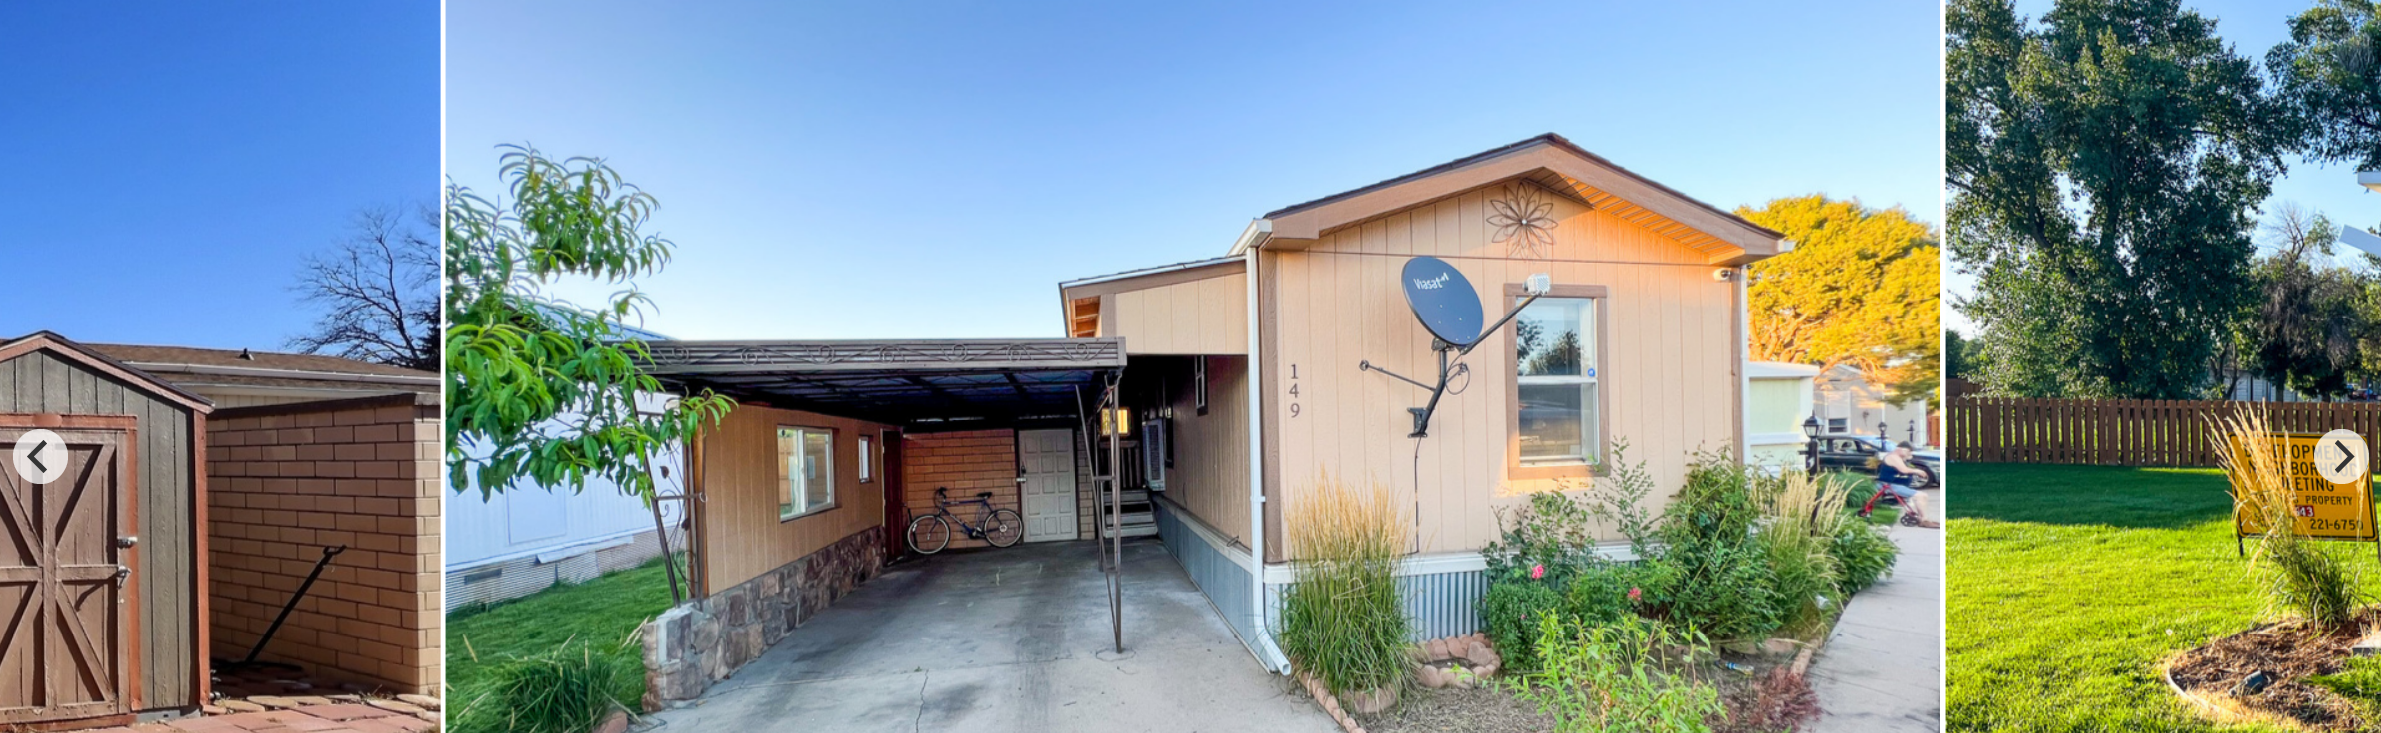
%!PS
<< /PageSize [2381 733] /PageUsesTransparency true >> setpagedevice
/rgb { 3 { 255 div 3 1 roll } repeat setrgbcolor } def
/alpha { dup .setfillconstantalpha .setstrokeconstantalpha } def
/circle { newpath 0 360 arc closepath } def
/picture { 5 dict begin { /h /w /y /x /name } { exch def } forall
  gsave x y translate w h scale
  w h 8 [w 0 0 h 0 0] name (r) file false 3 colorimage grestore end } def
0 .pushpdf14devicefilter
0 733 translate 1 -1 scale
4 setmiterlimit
255 255 255 rgb
0 0 2381 733 rectfill
(img/1.rgb) 0 0 441 733 picture
(img/2.rgb) 445 0 1495 733 picture
(img/3.rgb) 1945 0 436 733 picture
0.75 alpha
40.5 456.5 27.5 circle fill
1 alpha
51 51 51 rgb
27 456.5 moveto 43.5 473 lineto 47 469.5 lineto 33.5 456.5 lineto 47 443.5 lineto 43.5 440 lineto closepath fill
0.75 alpha
255 255 255 rgb
2341.5 456.5 27.5 circle fill
1 alpha
51 51 51 rgb
2354.5 456.5 moveto 2338 440 lineto 2335 443.5 lineto 2348 456.5 lineto 2335 469.5 lineto 2338 473 lineto closepath fill
.poppdf14devicefilter showpage
